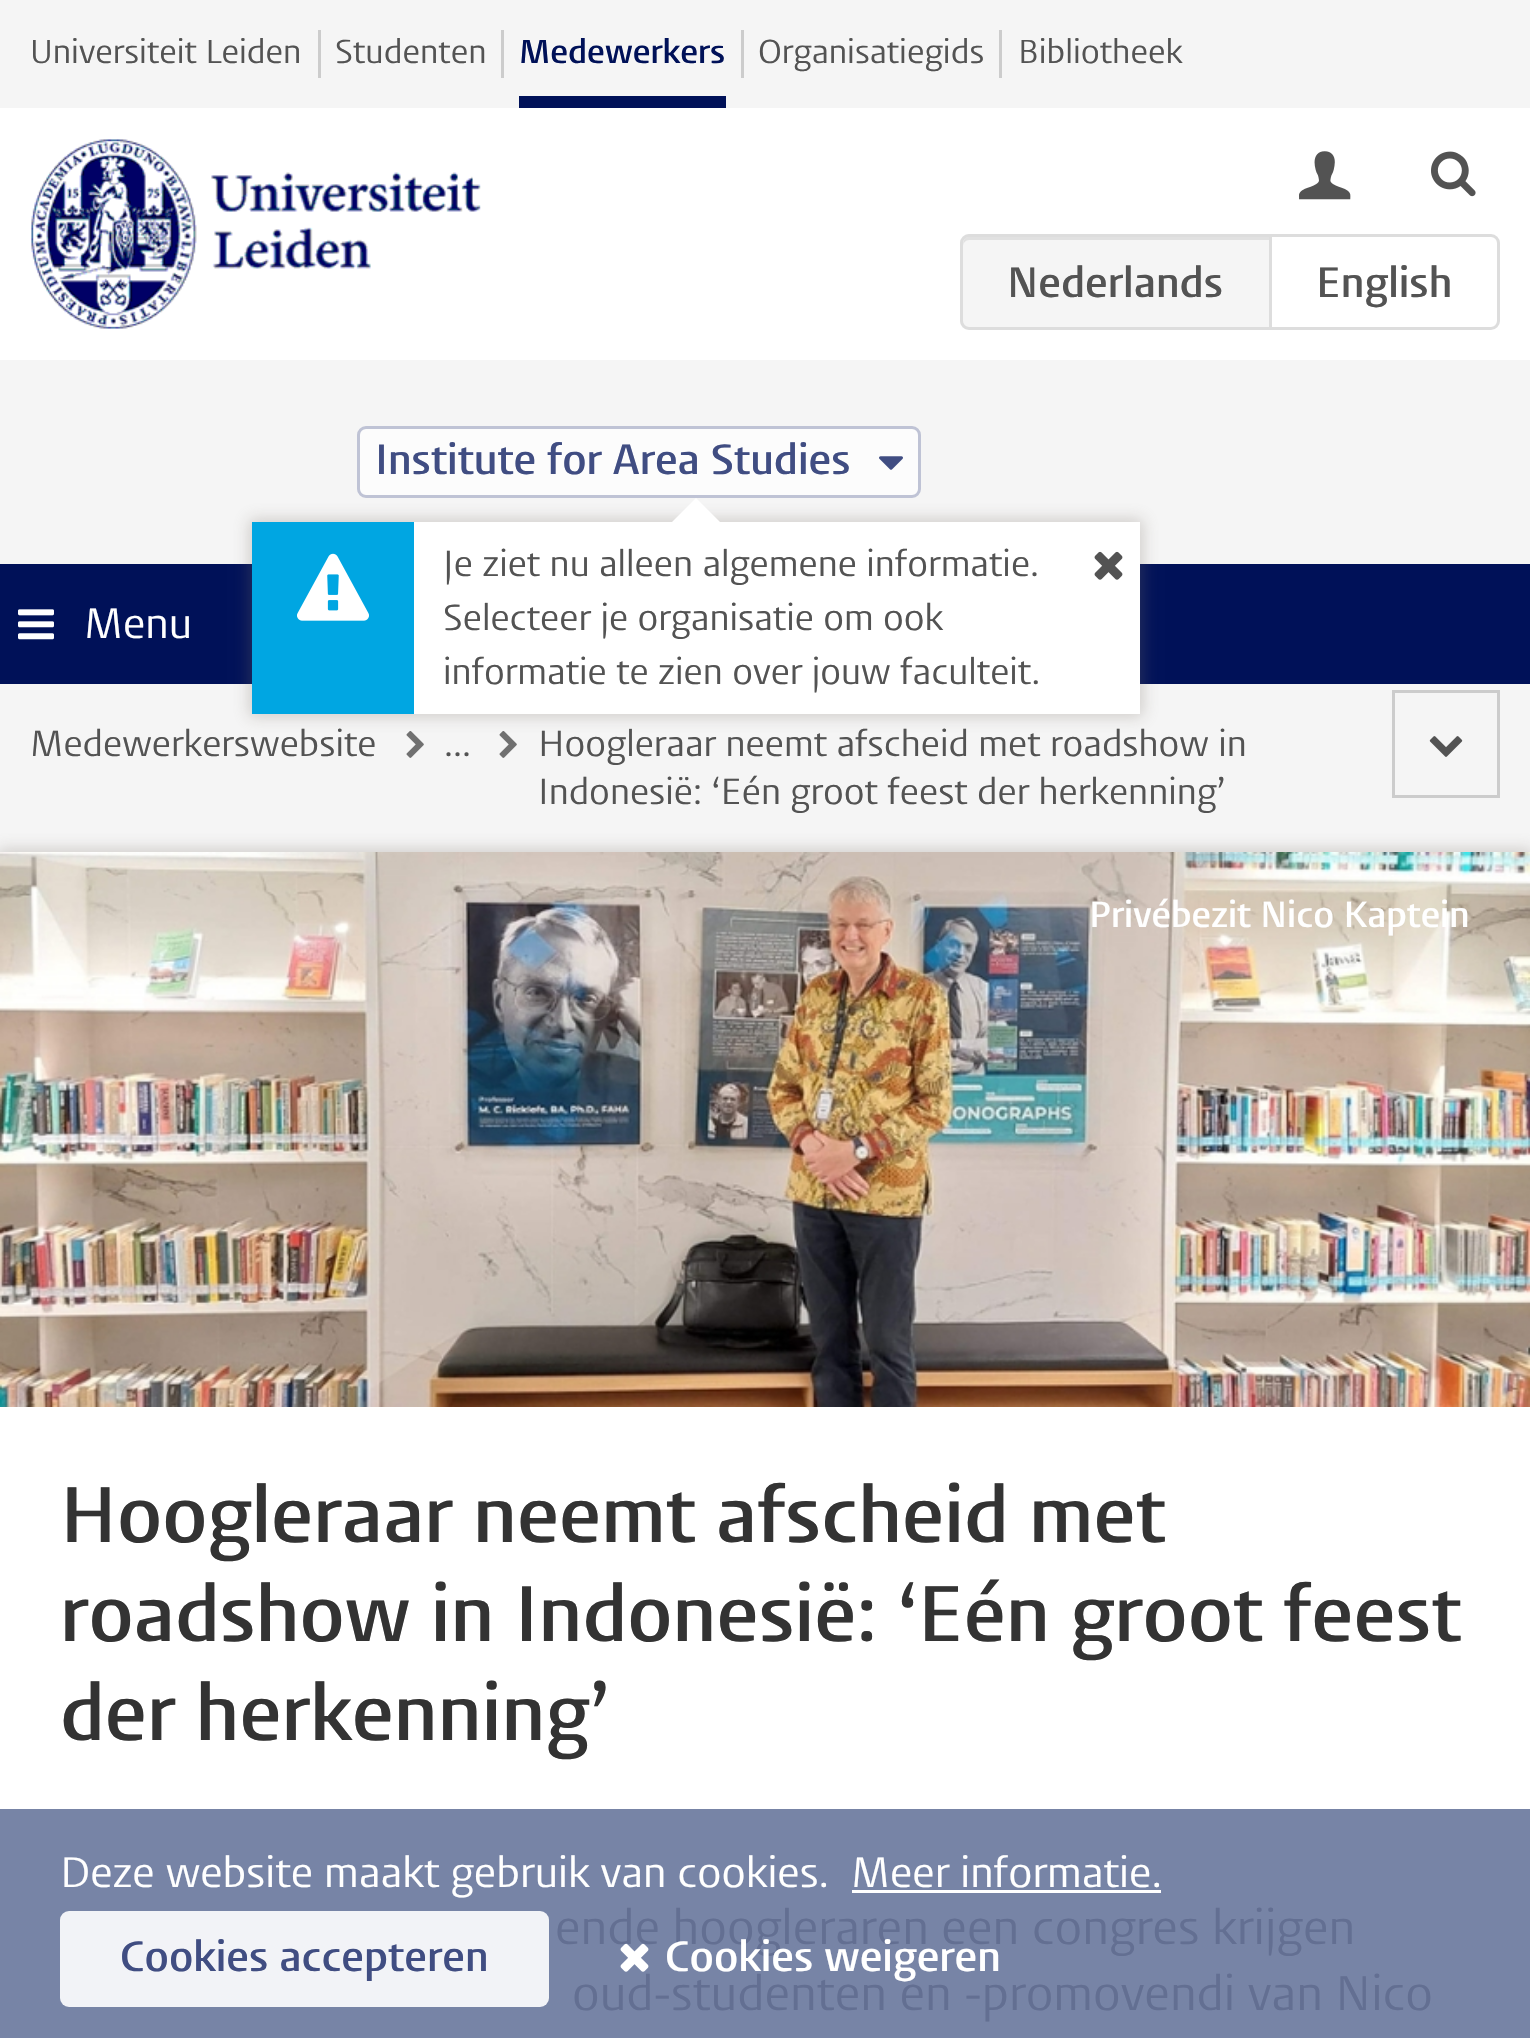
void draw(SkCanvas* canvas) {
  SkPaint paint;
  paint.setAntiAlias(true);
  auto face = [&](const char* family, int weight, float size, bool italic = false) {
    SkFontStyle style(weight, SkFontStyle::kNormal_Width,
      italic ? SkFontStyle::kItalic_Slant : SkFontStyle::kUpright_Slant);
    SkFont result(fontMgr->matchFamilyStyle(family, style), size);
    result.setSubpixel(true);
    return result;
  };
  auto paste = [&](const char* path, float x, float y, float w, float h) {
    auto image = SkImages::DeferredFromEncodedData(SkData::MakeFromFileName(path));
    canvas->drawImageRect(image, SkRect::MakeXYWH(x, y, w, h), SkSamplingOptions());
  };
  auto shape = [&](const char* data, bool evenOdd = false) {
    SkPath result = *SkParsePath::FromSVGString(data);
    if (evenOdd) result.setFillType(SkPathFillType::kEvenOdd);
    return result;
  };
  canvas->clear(0xfff5f5f5);
  {
    const struct { float x, y, w, h; SkColor color; } items[] = {
      {0, 108, 1530, 252, 0xffffffff},
      {318, 30, 3, 48, 0xffcccccc},
      {501, 30, 3, 48, 0xffcccccc},
      {741, 30, 3, 48, 0xffcccccc},
      {519, 96, 207, 12, 0xff001158},
      {999, 30, 3, 48, 0xffcccccc},
    };
    for (auto [x, y, w, h, color] : items) {
      paint.setColor(color);
      canvas->drawRect(SkRect::MakeXYWH(x, y, w, h), paint);
    }
  }
  paste("img/1.png", 31, 139, 450, 190);
  paste("img/2.png", 1299, 151, 52, 49);
  paste("img/3.png", 1431, 151, 45, 46);
  paint.setColor(0xfff5f5f5);
  canvas->drawPath(shape("M969 234H1272V330H969C964 330 960 326 960 321V243C960 238 964 234 969 234Z"), paint);
  paint.setColor(0xffe1e1e1);
  canvas->drawPath(shape("M969 240H1269V237H969C964 237 963 242 963 246C963 243 966 240 969 240Z"), paint);
  paint.setStroke(true);
  paint.setStrokeWidth(3);
  paint.setColor(0xffdddddd);
  canvas->drawPath(shape("M969 235.5H1270.5V328.5H969C965 328.5 961.5 325 961.5 321V243C961.5 239 965 235.5 969 235.5Z"), paint);
  paint.setStroke(false);
  paint.setColor(0xffffffff);
  canvas->drawPath(shape("M1270.5 235.5H1491C1495 235.5 1498.5 239 1498.5 243V321C1498.5 325 1495 328.5 1491 328.5H1270.5Z"), paint);
  paint.setStroke(true);
  paint.setColor(0xffdddddd);
  canvas->drawPath(shape("M1270.5 235.5H1491C1495 235.5 1498.5 239 1498.5 243V321C1498.5 325 1495 328.5 1491 328.5H1270.5Z"), paint);
  paint.setStroke(false);
  paint.setColor(0xff001158);
  canvas->drawRect(SkRect::MakeXYWH(0, 564, 1530, 120), paint);
  paste("img/4.png", 18, 609, 36, 31);
  paint.setColor(0xfffcfcfc);
  canvas->drawRoundRect(SkRect::MakeXYWH(358.5f, 427.5f, 561, 69), 7.5f, 7.5f, paint);
  paint.setStroke(true);
  paint.setColor(0xffbfc3d5);
  canvas->drawRoundRect(SkRect::MakeXYWH(358.5f, 427.5f, 561, 69), 7.5f, 7.5f, paint);
  paste("img/5.png", 879, 456, 24, 14);
  paste("img/8.png", 406, 731, 18, 27);
  paste("img/8.png", 499, 731, 18, 27);
  paint.setStroke(false);
  paint.setColor(0x4d786e64);
  paint.setMaskFilter(SkMaskFilter::MakeBlur(kNormal_SkBlurStyle, 7.5f));
  canvas->drawRect(SkRect::MakeXYWH(249, 519, 894, 198), paint);
  paint.setMaskFilter(nullptr);
  paint.setColor(0xffffffff);
  canvas->drawRect(SkRect::MakeXYWH(414, 522, 726, 192), paint);
  canvas->drawPath(shape("M720 522H672L696 498Z"), paint);
  paint.setColor(0xff00a6e2);
  canvas->drawRect(SkRect::MakeXYWH(252, 522, 162, 192), paint);
  paste("img/6.png", 297, 553, 72, 68);
  paste("img/7.png", 1094, 551, 29, 29);
  paint.setStroke(true);
  paint.setColor(0xffcccccc);
  canvas->drawRect(SkRect::MakeXYWH(1393.5f, 691.5f, 105, 105), paint);
  paste("img/9.png", 1429, 736, 34, 21);
  paint.setStroke(false);
  paint.setColor(0x4d786e64);
  paint.setMaskFilter(SkMaskFilter::MakeBlur(kNormal_SkBlurStyle, 7.5f));
  canvas->drawRect(SkRect::MakeXYWH(-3, 849, 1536, 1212), paint);
  paint.setMaskFilter(nullptr);
  paint.setColor(0xffffffff);
  canvas->drawRect(SkRect::MakeXYWH(0, 1407, 1530, 402), paint);
  paint.setColor(0xff7784a6);
  canvas->drawRect(SkRect::MakeXYWH(0, 1809, 1530, 229), paint);
  paste("img/10.png", 0, 852, 1530, 555);
  paint.setColor(0xffffffff);
  canvas->drawRect(SkRect::MakeXYWH(852, 1890, 309, 3), paint);
  paint.setColor(0xe6ffffff);
  canvas->drawRoundRect(SkRect::MakeXYWH(60, 1911, 489, 96), 9, 9, paint);
  auto f0 = face("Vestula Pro", 400, 33);
  paint.setColor(0xff535353);
  canvas->drawString("Universiteit Leiden", 30, 63, f0, paint);
  canvas->drawString("Studenten", 335, 63, f0, paint);
  auto f1 = face("Vestula Pro", 600, 33);
  paint.setColor(0xff001158);
  canvas->drawString("Medewerkers", 519, 63, f1, paint);
  paint.setColor(0xff535353);
  canvas->drawString("Organisatiegids", 758, 63, f0, paint);
  canvas->drawString("Bibliotheek", 1018, 63, f0, paint);
  auto f2 = face("Vestula Pro", 600, 42);
  canvas->drawString("Nederlands", 1007, 297, f2, paint);
  canvas->drawString("English", 1316, 297, f2, paint);
  auto f3 = face("Vestula Pro", 400, 42);
  paint.setColor(0xffffffff);
  canvas->drawString("Menu", 84, 638, f3, paint);
  paint.setColor(0xff404d82);
  canvas->drawString("Institute for Area Studies", 375, 474, f2, paint);
  auto f4 = face("Vestula Pro", 400, 36);
  paint.setColor(0xff535353);
  {
    const struct { const char* s; float x, y; } items[] = {
      {"Je ziet nu alleen algemene informatie.", 443, 576},
      {"Selecteer je organisatie om ook", 443, 630},
      {"informatie te zien over jouw faculteit.", 443, 684},
      {"Medewerkerswebsite", 30, 756},
      {"...", 444, 756},
      {"Hoogleraar neemt afscheid met roadshow in", 538, 756},
      {"Indonesië: ‘Eén groot feest der herkenning’", 538, 804},
    };
    for (auto [s, x, y] : items) {
      canvas->drawString(s, x, y, f4, paint);
    }
  }
  auto f5 = face("Vestula Pro", 600, 36);
  paint.setColor(0xffffffff);
  canvas->drawString("Privébezit Nico Kaptein", 1089, 927, f5, paint);
  auto f6 = face("Vestula Pro", 600, 78);
  paint.setColor(0xff333333);
  {
    const struct { const char* s; float x, y; } items[] = {
      {"Hoogleraar neemt afscheid met", 60, 1542},
      {"roadshow in Indonesië: ‘Eén groot feest", 60, 1641},
      {"der herkenning’", 60, 1740},
    };
    for (auto [s, x, y] : items) {
      canvas->drawString(s, x, y, f6, paint);
    }
  }
  auto f7 = face("Vestula Pro", 400, 48);
  paint.setColor(0xff636f92);
  canvas->drawString("ende hoogleraren een congres krijgen", 555, 1944, f7, paint);
  canvas->drawString("oud-studenten en -promovendi van Nico", 572, 2010, f7, paint);
  paint.setColor(0xffffffff);
  canvas->drawString("Deze website maakt gebruik van cookies.", 60, 1887, f3, paint);
  canvas->drawString("Meer informatie.", 851, 1887, f3, paint);
  paint.setColor(0xff404d82);
  canvas->drawString("Cookies accepteren", 120, 1971, f2, paint);
  paste("img/11.png", 620, 1943, 29, 29);
  paint.setColor(0xffffffff);
  canvas->drawString("Cookies weigeren", 665, 1971, f2, paint);
}
